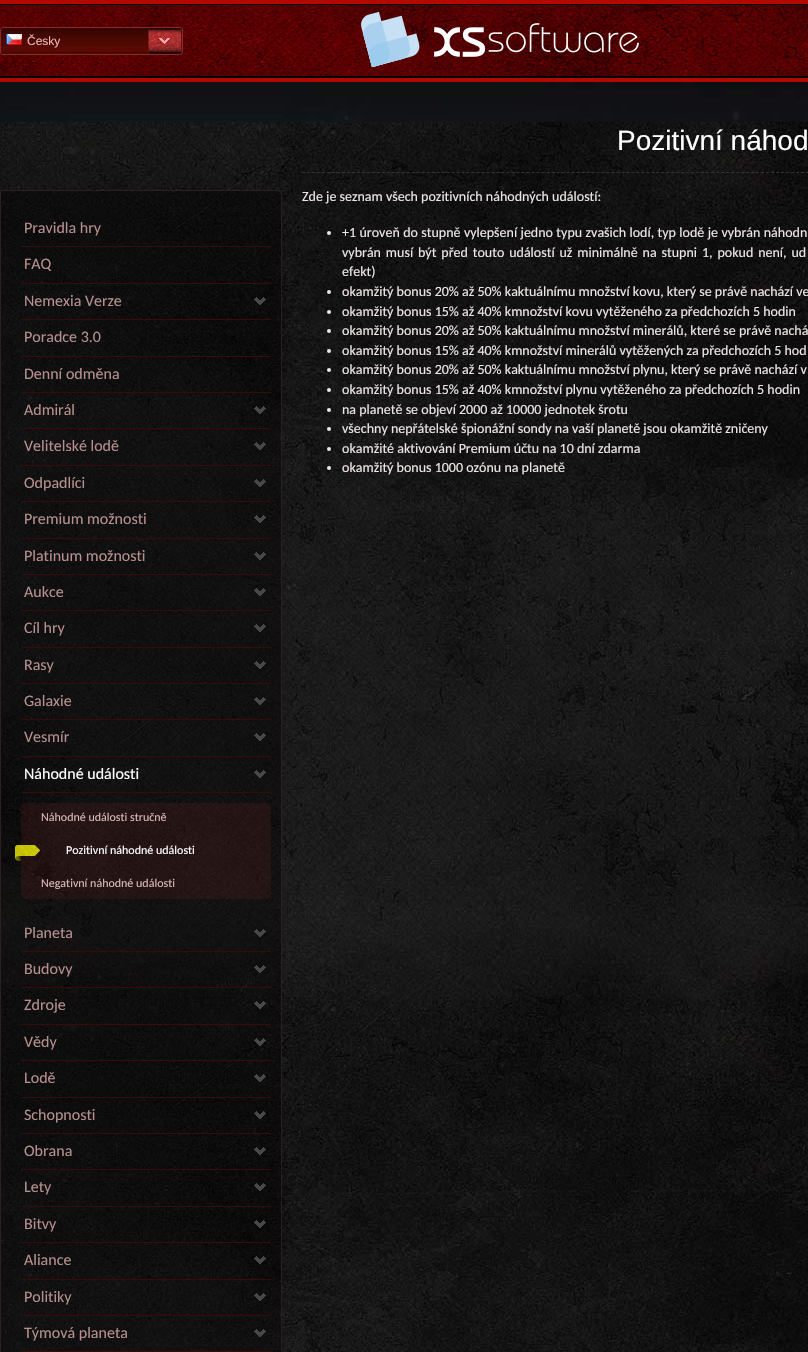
void draw(SkCanvas* canvas) {
  SkPaint paint;
  paint.setAntiAlias(true);
  auto face = [&](const char* family, int weight, float size, bool italic = false) {
    SkFontStyle style(weight, SkFontStyle::kNormal_Width,
      italic ? SkFontStyle::kItalic_Slant : SkFontStyle::kUpright_Slant);
    SkFont result(fontMgr->matchFamilyStyle(family, style), size);
    result.setSubpixel(true);
    return result;
  };
  auto writeSpaced = [&](const char* s, float x, float y, const SkFont& font, const SkPaint& ink, float letter, float word) {
    std::vector<SkGlyphID> glyphs(font.countText(s, strlen(s), SkTextEncoding::kUTF8));
    std::vector<float> xs(glyphs.size());
    font.textToGlyphs(s, strlen(s), SkTextEncoding::kUTF8, glyphs);
    font.getXPos(glyphs, xs, x);
    float extra = 0;
    for (size_t i = 0; i < glyphs.size(); i++) {
      xs[i] += extra;
      extra += letter + word * (glyphs[i] == font.unicharToGlyph(' '));
    }
    canvas->drawTextBlob(SkTextBlob::MakeFromPosHGlyphs(glyphs, xs, y, font), 0, 0, ink);
  };
  auto paste = [&](const char* path, float x, float y, float w, float h) {
    auto image = SkImages::DeferredFromEncodedData(SkData::MakeFromFileName(path));
    canvas->drawImageRect(image, SkRect::MakeXYWH(x, y, w, h), SkSamplingOptions());
  };
  auto shape = [&](const char* data, bool evenOdd = false) {
    SkPath result = *SkParsePath::FromSVGString(data);
    if (evenOdd) result.setFillType(SkPathFillType::kEvenOdd);
    return result;
  };
  canvas->clear(0xffffffff);
  paste("img/1.png", 0, 82, 808, 48);
  paste("img/2.png", 0, 0, 808, 82);
  paste("img/3.png", 0, 28, 182, 27);
  paint.setStroke(true);
  paint.setStrokeWidth(1);
  paint.setColor(0xff872b2d);
  canvas->drawRoundRect(SkRect::MakeXYWH(0.5f, 27.5f, 182, 27), 2.5f, 2.5f, paint);
  paste("img/4.png", 6, 34, 16, 11);
  paste("img/5.png", 361, 11, 278, 57);
  paste("img/6.png", 0, 122, 808, 1230);
  paint.setStroke(false);
  paint.setColor(0x66000000);
  canvas->drawPath(shape("M.5 190.5H277C279.5 190.5 281.5 192.5 281.5 195V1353C281.5 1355.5 279.5 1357.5 277 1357.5H.5Z"), paint);
  paint.setStroke(true);
  paint.setColor(0xff29211f);
  canvas->drawPath(shape("M.5 190.5H277C279.5 190.5 281.5 192.5 281.5 195V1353C281.5 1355.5 279.5 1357.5 277 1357.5H.5Z"), paint);
  paint.setStroke(false);
  {
    const struct { float x, y, w, h; SkColor color; } items[] = {
      {21, 246, 250, 1, 0xff360d07},
      {21, 283, 250, 1, 0xff360d07},
      {21, 319, 250, 1, 0xff360d07},
    };
    for (auto [x, y, w, h, color] : items) {
      paint.setColor(color);
      canvas->drawRect(SkRect::MakeXYWH(x, y, w, h), paint);
    }
  }
  paste("img/7.png", 254, 297, 12, 8);
  {
    const struct { float x, y, w, h; SkColor color; } items[] = {
      {21, 356, 250, 1, 0xff360d07},
      {21, 392, 250, 1, 0xff360d07},
      {21, 428, 250, 1, 0xff360d07},
    };
    for (auto [x, y, w, h, color] : items) {
      paint.setColor(color);
      canvas->drawRect(SkRect::MakeXYWH(x, y, w, h), paint);
    }
  }
  paste("img/8.png", 254, 406, 12, 8);
  canvas->drawRect(SkRect::MakeXYWH(21, 465, 250, 1), paint);
  paste("img/9.png", 254, 442, 12, 8);
  canvas->drawRect(SkRect::MakeXYWH(21, 501, 250, 1), paint);
  paste("img/10.png", 254, 479, 12, 8);
  canvas->drawRect(SkRect::MakeXYWH(21, 538, 250, 1), paint);
  paste("img/11.png", 254, 515, 12, 8);
  canvas->drawRect(SkRect::MakeXYWH(21, 574, 250, 1), paint);
  paste("img/12.png", 254, 552, 12, 8);
  canvas->drawRect(SkRect::MakeXYWH(21, 610, 250, 1), paint);
  paste("img/13.png", 254, 588, 12, 8);
  canvas->drawRect(SkRect::MakeXYWH(21, 647, 250, 1), paint);
  paste("img/14.png", 254, 624, 12, 8);
  canvas->drawRect(SkRect::MakeXYWH(21, 683, 250, 1), paint);
  paste("img/15.png", 254, 661, 12, 8);
  canvas->drawRect(SkRect::MakeXYWH(21, 719, 250, 1), paint);
  paste("img/16.png", 254, 697, 12, 8);
  canvas->drawRect(SkRect::MakeXYWH(21, 756, 250, 1), paint);
  paste("img/17.png", 254, 733, 12, 8);
  canvas->drawRect(SkRect::MakeXYWH(21, 792, 250, 1), paint);
  paste("img/18.png", 254, 770, 12, 8);
  paint.setColor(0x21a72525);
  canvas->drawRoundRect(SkRect::MakeXYWH(21, 803, 250, 96), 5, 5, paint);
  paste("img/19.png", 15, 845, 25, 16);
  paint.setColor(0xff360d07);
  canvas->drawRect(SkRect::MakeXYWH(21, 951, 250, 1), paint);
  paste("img/20.png", 254, 929, 12, 8);
  canvas->drawRect(SkRect::MakeXYWH(21, 987, 250, 1), paint);
  paste("img/21.png", 254, 965, 12, 8);
  canvas->drawRect(SkRect::MakeXYWH(21, 1024, 250, 1), paint);
  paste("img/22.png", 254, 1001, 12, 8);
  canvas->drawRect(SkRect::MakeXYWH(21, 1060, 250, 1), paint);
  paste("img/23.png", 254, 1038, 12, 8);
  canvas->drawRect(SkRect::MakeXYWH(21, 1097, 250, 1), paint);
  paste("img/24.png", 254, 1074, 12, 8);
  canvas->drawRect(SkRect::MakeXYWH(21, 1133, 250, 1), paint);
  paste("img/25.png", 254, 1111, 12, 8);
  canvas->drawRect(SkRect::MakeXYWH(21, 1169, 250, 1), paint);
  paste("img/26.png", 254, 1147, 12, 8);
  canvas->drawRect(SkRect::MakeXYWH(21, 1206, 250, 1), paint);
  paste("img/27.png", 254, 1183, 12, 8);
  canvas->drawRect(SkRect::MakeXYWH(21, 1242, 250, 1), paint);
  paste("img/28.png", 254, 1220, 12, 8);
  canvas->drawRect(SkRect::MakeXYWH(21, 1279, 250, 1), paint);
  paste("img/29.png", 254, 1256, 12, 8);
  canvas->drawRect(SkRect::MakeXYWH(21, 1315, 250, 1), paint);
  paste("img/30.png", 254, 1293, 12, 8);
  canvas->drawRect(SkRect::MakeXYWH(21, 1351, 250, 1), paint);
  paste("img/31.png", 254, 1329, 12, 8);
  paint.setStroke(true);
  paint.setColor(0xff333333);
  paint.setPathEffect(SkDashPathEffect::Make({{3, 1.99f}}, 0));
  canvas->drawPath(shape("M302 172.5H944"), paint);
  paint.setPathEffect(nullptr);
  paint.setStroke(false);
  paint.setColor(0xffeee6e6);
  canvas->drawCircle(329, 233, 2, paint);
  canvas->drawCircle(329, 292, 2, paint);
  canvas->drawCircle(329, 312, 2, paint);
  canvas->drawCircle(329, 331, 2, paint);
  canvas->drawCircle(329, 351, 2, paint);
  canvas->drawCircle(329, 370, 2, paint);
  canvas->drawCircle(329, 390, 2, paint);
  canvas->drawCircle(329, 410, 2, paint);
  canvas->drawCircle(329, 429, 2, paint);
  canvas->drawCircle(329, 449, 2, paint);
  canvas->drawCircle(329, 468, 2, paint);
  auto f0 = face("Liberation Sans", 400, 12);
  paint.setColor(0xffe9b7b7);
  canvas->drawString("Česky", 27, 45, f0, paint);
  auto f1 = face("Carlito", 400, 16);
  paint.setColor(0xffb78f8f);
  {
    const struct { const char* s; float x, y; } items[] = {
      {"Pravidla hry", 24, 233},
      {"FAQ", 24, 269},
      {"Nemexia Verze", 24, 306},
      {"Poradce 3.0", 24, 342},
      {"Denní odměna", 24, 379},
      {"Admirál", 24, 415},
      {"Velitelské lodě", 24, 451},
      {"Odpadlíci", 24, 488},
      {"Premium možnosti", 24, 524},
      {"Platinum možnosti", 24, 561},
      {"Aukce", 24, 597},
      {"Cíl hry", 24, 633},
      {"Rasy", 24, 670},
      {"Galaxie", 24, 706},
      {"Vesmír", 24, 742},
    };
    for (auto [s, x, y] : items) {
      canvas->drawString(s, x, y, f1, paint);
    }
  }
  paint.setColor(0xffffffff);
  canvas->drawString("Náhodné události", 24, 779, f1, paint);
  auto f2 = face("Carlito", 400, 12);
  paint.setColor(0xffdbbaba);
  canvas->drawString("Náhodné události stručně", 41, 821, f2, paint);
  paint.setColor(0xffffffff);
  canvas->drawString("Pozitivní náhodné události", 66, 854, f2, paint);
  paint.setColor(0xffdbbaba);
  canvas->drawString("Negativní náhodné události", 41, 887, f2, paint);
  paint.setColor(0xffb78f8f);
  {
    const struct { const char* s; float x, y; } items[] = {
      {"Planeta", 24, 938},
      {"Budovy", 24, 974},
      {"Zdroje", 24, 1010},
      {"Vědy", 24, 1047},
      {"Lodě", 24, 1083},
      {"Schopnosti", 24, 1120},
      {"Obrana", 24, 1156},
      {"Lety", 24, 1192},
      {"Bitvy", 24, 1229},
      {"Aliance", 24, 1265},
      {"Politiky", 24, 1302},
      {"Týmová planeta", 24, 1338},
    };
    for (auto [s, x, y] : items) {
      canvas->drawString(s, x, y, f1, paint);
    }
  }
  auto f3 = face("Liberation Sans", 400, 28);
  paint.setColor(0xffffffff);
  canvas->drawString("Pozitivní náhod", 617, 150, f3, paint);
  auto f4 = face("Carlito", 400, 14);
  paint.setColor(0xffeee6e6);
  canvas->drawString("Zde je seznam všech pozitivních náhodných událostí:", 302, 201, f4, paint);
  writeSpaced("+1 úroveň do stupně vylepšení jedno typu zvašich lodí, typ lodě je vybrán náhodn", 342, 237, f4, paint, 0, 0.25f);
  writeSpaced("vybrán musí být před touto událostí už minimálně na stupni 1, pokud není, ud", 342, 257, f4, paint, 0, 1.75f);
  {
    const struct { const char* s; float x, y; } items[] = {
      {"efekt)", 342, 276},
      {"okamžitý bonus 20% až 50% kaktuálnímu množství kovu, který se právě nachází ve", 342, 296},
      {"okamžitý bonus 15% až 40% kmnožství kovu vytěženého za předchozích 5 hodin", 342, 316},
      {"okamžitý bonus 20% až 50% kaktuálnímu množství minerálů, které se právě nachá", 342, 335},
      {"okamžitý bonus 15% až 40% kmnožství minerálů vytěžených za předchozích 5 hod", 342, 355},
      {"okamžitý bonus 20% až 50% kaktuálnímu množství plynu, který se právě nachází v", 342, 374},
      {"okamžitý bonus 15% až 40% kmnožství plynu vytěženého za předchozích 5 hodin", 342, 394},
      {"na planetě se objeví 2000 až 10000 jednotek šrotu", 342, 414},
      {"všechny nepřátelské špionážní sondy na vaší planetě jsou okamžitě zničeny", 342, 433},
      {"okamžité aktivování Premium účtu na 10 dní zdarma", 342, 453},
      {"okamžitý bonus 1000 ozónu na planetě", 342, 472},
    };
    for (auto [s, x, y] : items) {
      canvas->drawString(s, x, y, f4, paint);
    }
  }
}
